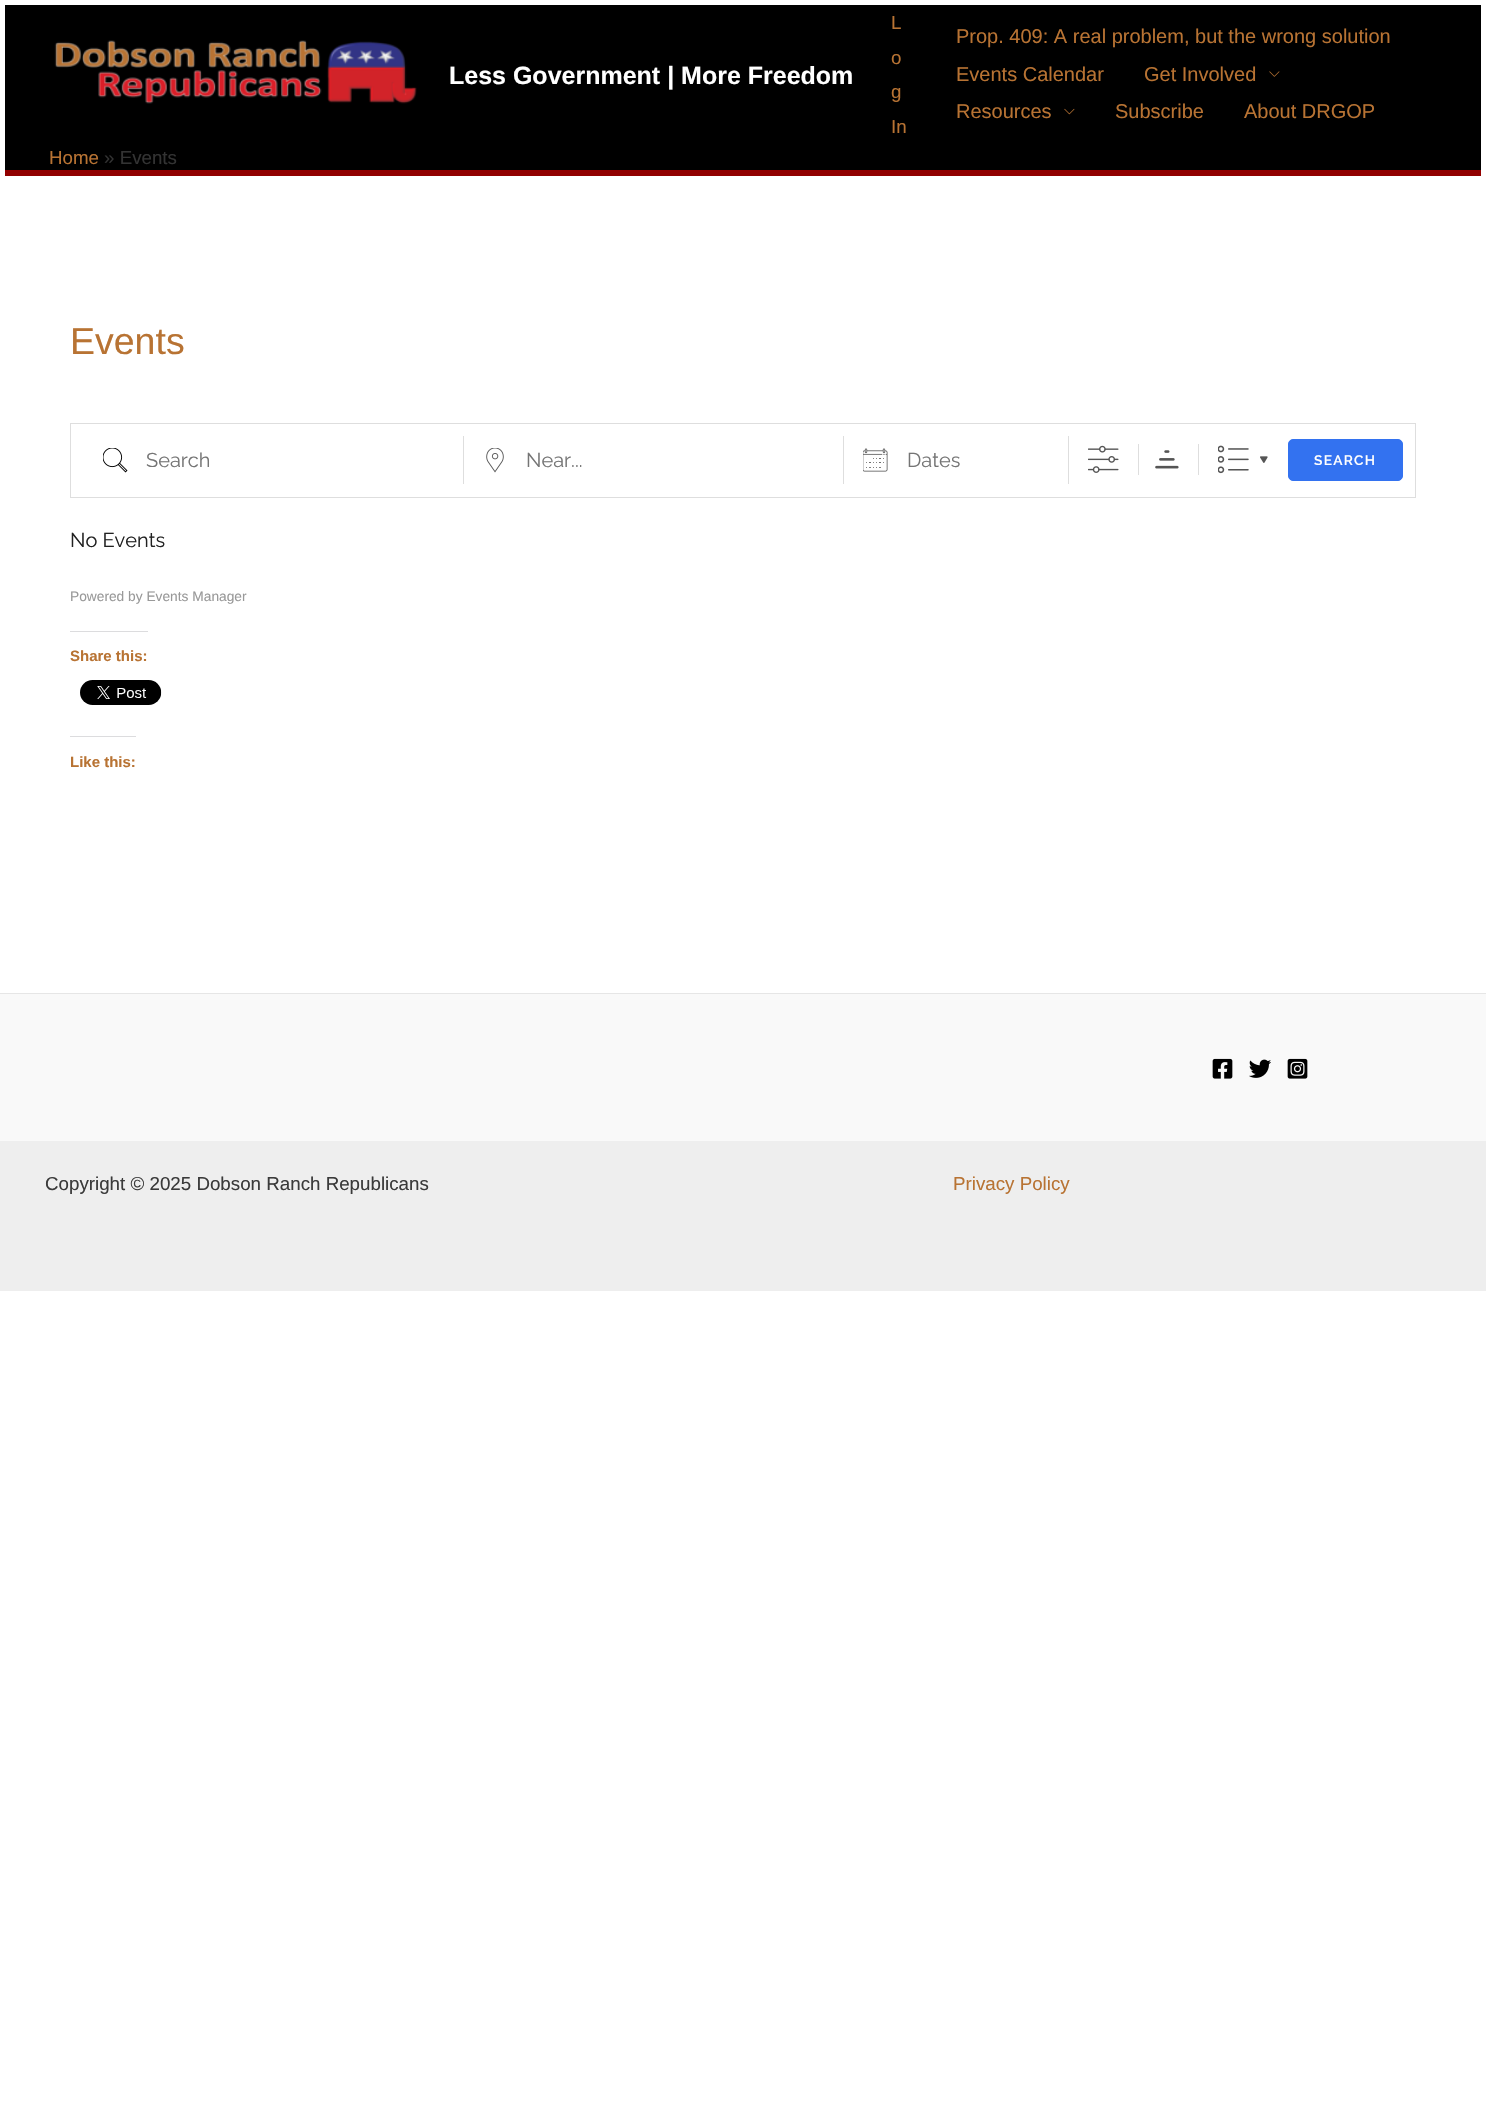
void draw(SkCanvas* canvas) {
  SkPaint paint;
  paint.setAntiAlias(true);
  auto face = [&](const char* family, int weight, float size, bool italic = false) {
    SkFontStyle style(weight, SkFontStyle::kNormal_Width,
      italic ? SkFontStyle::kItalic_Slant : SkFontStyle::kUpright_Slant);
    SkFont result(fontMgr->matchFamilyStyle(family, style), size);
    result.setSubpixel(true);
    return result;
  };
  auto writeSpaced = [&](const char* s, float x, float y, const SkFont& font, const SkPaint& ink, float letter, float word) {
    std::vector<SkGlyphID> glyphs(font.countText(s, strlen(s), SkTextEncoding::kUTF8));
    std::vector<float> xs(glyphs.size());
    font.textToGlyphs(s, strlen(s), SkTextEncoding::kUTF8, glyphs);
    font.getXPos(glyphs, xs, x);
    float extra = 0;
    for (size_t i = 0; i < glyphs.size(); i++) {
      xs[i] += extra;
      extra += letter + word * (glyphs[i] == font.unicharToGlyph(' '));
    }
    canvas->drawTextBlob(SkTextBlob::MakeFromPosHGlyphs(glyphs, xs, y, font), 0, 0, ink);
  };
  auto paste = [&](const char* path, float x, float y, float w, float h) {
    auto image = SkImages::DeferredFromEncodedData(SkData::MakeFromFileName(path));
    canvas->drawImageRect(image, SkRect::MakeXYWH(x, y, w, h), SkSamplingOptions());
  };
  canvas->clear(0xffffffff);
  paint.setColor(0xff000000);
  canvas->drawRect(SkRect::MakeXYWH(5, 5, 1476, 165), paint);
  paint.setColor(0xff910000);
  canvas->drawRect(SkRect::MakeXYWH(5, 170, 1476, 6), paint);
  paste("img/1.png", 54, 40, 363, 64);
  paste("img/2.png", 1269, 71, 11, 6);
  paste("img/3.png", 1064, 108, 11, 7);
  paint.setStroke(true);
  paint.setStrokeWidth(1);
  paint.setColor(0xffdedede);
  canvas->drawRect(SkRect::MakeXYWH(70.5f, 423.5f, 1345, 74), paint);
  paint.setStroke(false);
  canvas->drawRect(SkRect::MakeXYWH(463, 436, 1, 48), paint);
  paste("img/4.png", 103, 448, 25, 25);
  canvas->drawRect(SkRect::MakeXYWH(843, 436, 1, 48), paint);
  paste("img/5.png", 486, 448, 18, 25);
  canvas->drawRect(SkRect::MakeXYWH(1068, 436, 1, 48), paint);
  paste("img/6.png", 863, 448, 25, 24);
  paste("img/7.png", 1088, 445, 31, 28);
  canvas->drawRect(SkRect::MakeXYWH(1138, 444, 1, 31), paint);
  paste("img/8.png", 1155, 450, 24, 19);
  canvas->drawRect(SkRect::MakeXYWH(1198, 444, 1, 31), paint);
  paste("img/9.png", 1260, 456, 8, 7);
  paste("img/10.png", 1218, 445, 31, 29);
  paint.setColor(0xff3372f0);
  canvas->drawRoundRect(SkRect::MakeXYWH(1288.5f, 439.5f, 114, 41), 4.5f, 4.5f, paint);
  paint.setStroke(true);
  canvas->drawRoundRect(SkRect::MakeXYWH(1288.5f, 439.5f, 114, 41), 4.5f, 4.5f, paint);
  paint.setStroke(false);
  paint.setColor(0xffdcdcde);
  canvas->drawRect(SkRect::MakeXYWH(70, 631, 78, 1), paint);
  paste("img/11.png", 80, 680, 82, 25);
  {
    const struct { float x, y, w, h; SkColor color; } items[] = {
      {70, 736, 66, 1, 0xffdcdcde},
      {0, 994, 1486, 147, 0xfff9f9f9},
      {0, 993, 1486, 1, 0xffe6e6e6},
    };
    for (auto [x, y, w, h, color] : items) {
      paint.setColor(color);
      canvas->drawRect(SkRect::MakeXYWH(x, y, w, h), paint);
    }
  }
  paste("img/12.png", 1212, 1058, 21, 21);
  paste("img/13.png", 1249, 1059, 22, 19);
  paste("img/14.png", 1287, 1058, 21, 21);
  paint.setColor(0xffeeeeee);
  canvas->drawRect(SkRect::MakeXYWH(0, 1141, 1486, 150), paint);
  auto f0 = face("Liberation Sans", 700, 25);
  paint.setColor(0xffffffff);
  canvas->drawString("Less Government | More Freedom", 449, 84, f0, paint);
  auto f1 = face("Liberation Sans", 400, 18.75f);
  paint.setColor(0xffb87333);
  {
    const struct { const char* s; float x, y; } items[] = {
      {"L", 891, 29},
      {"o", 891, 64},
      {"g", 891, 98},
      {"In", 891, 133},
    };
    for (auto [s, x, y] : items) {
      canvas->drawString(s, x, y, f1, paint);
    }
  }
  auto f2 = face("Liberation Sans", 400, 20);
  {
    const struct { const char* s; float x, y; } items[] = {
      {"Prop. 409: A real problem, but the wrong solution", 956, 43},
      {"Events Calendar", 956, 81},
      {"Get Involved", 1144, 81},
      {"Resources", 956, 118},
      {"Subscribe", 1115, 118},
      {"About DRGOP", 1244, 118},
    };
    for (auto [s, x, y] : items) {
      canvas->drawString(s, x, y, f2, paint);
    }
  }
  canvas->drawString("Home", 49, 164, f1, paint);
  paint.setColor(0xff333333);
  canvas->drawString("» Events", 104, 164, f1, paint);
  auto f3 = face("Liberation Sans", 400, 37.5f);
  paint.setColor(0xffb87333);
  canvas->drawString("Events", 70, 354, f3, paint);
  auto f4 = face("Raleway", 400, 20);
  paint.setColor(0xff757575);
  {
    const struct { const char* s; float x, y; } items[] = {
      {"Search", 146, 467},
      {"Near...", 526, 467},
      {"Dates", 907, 467},
    };
    for (auto [s, x, y] : items) {
      canvas->drawString(s, x, y, f4, paint);
    }
  }
  auto f5 = face("Raleway", 600, 13.75f);
  paint.setColor(0xffffffff);
  writeSpaced("SEARCH", 1314, 465, f5, paint, 1.25f, 0);
  paint.setColor(0xff212121);
  canvas->drawString("No Events", 70, 547, f4, paint);
  auto f6 = face("Liberation Sans", 400, 13.75f);
  paint.setColor(0xff999999);
  canvas->drawString("Powered by Events Manager", 70, 601, f6, paint);
  auto f7 = face("Liberation Sans", 700, 15);
  paint.setColor(0xffb87333);
  canvas->drawString("Share this:", 70, 661, f7, paint);
  canvas->drawString("Like this:", 70, 767, f7, paint);
  paint.setColor(0xff3a3a3a);
  canvas->drawString("Copyright © 2025 Dobson Ranch Republicans", 45, 1190, f1, paint);
  paint.setColor(0xffb87333);
  canvas->drawString("Privacy Policy", 953, 1190, f1, paint);
}
